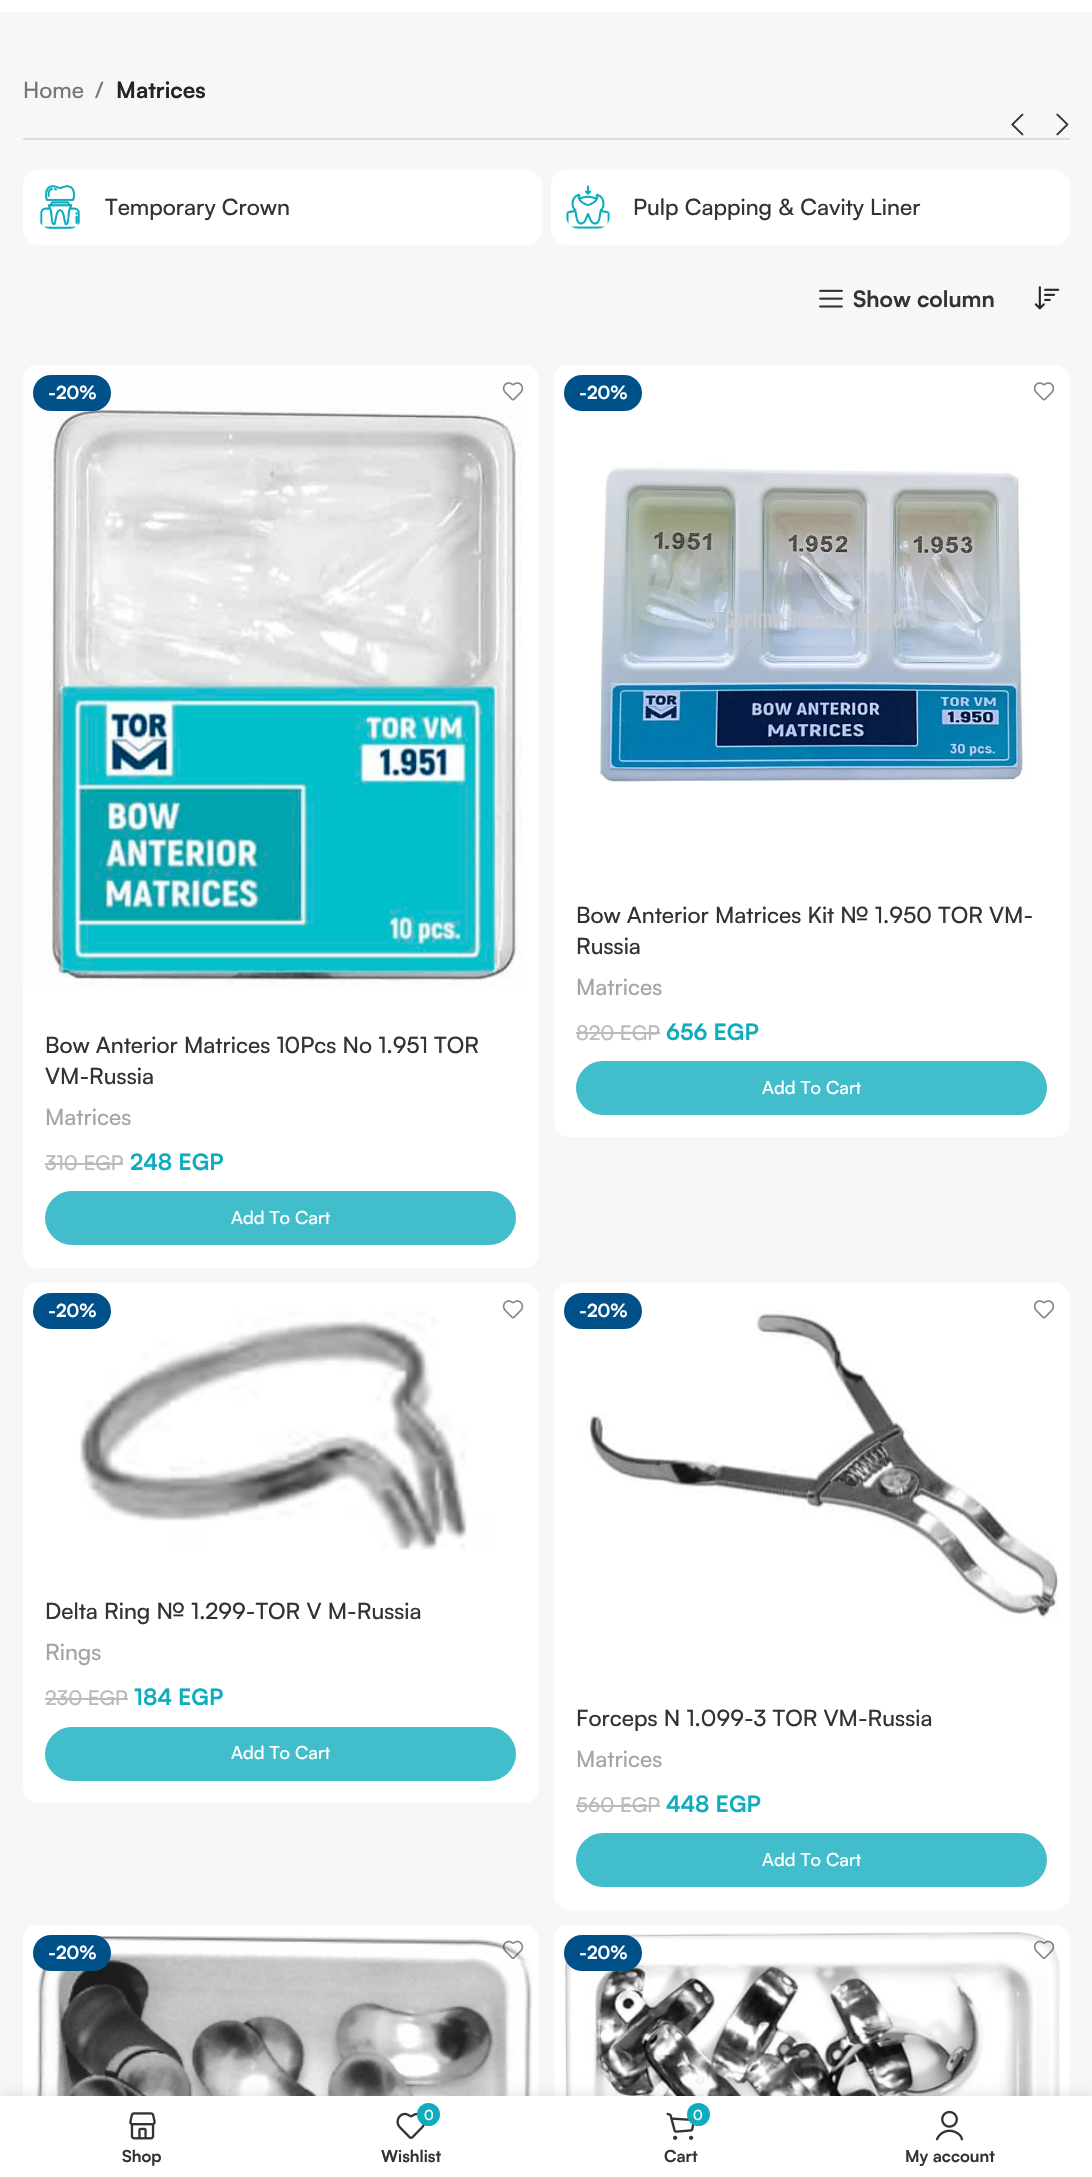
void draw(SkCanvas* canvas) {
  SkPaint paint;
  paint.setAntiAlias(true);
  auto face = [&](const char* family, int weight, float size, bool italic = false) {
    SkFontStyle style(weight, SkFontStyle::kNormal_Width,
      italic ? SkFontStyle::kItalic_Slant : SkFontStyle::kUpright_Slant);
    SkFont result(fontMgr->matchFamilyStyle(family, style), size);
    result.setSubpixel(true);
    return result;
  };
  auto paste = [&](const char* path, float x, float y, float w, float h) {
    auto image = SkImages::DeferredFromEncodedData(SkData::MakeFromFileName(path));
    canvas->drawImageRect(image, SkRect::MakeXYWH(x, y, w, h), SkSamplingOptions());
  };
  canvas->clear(0xffffffff);
  paint.setColor(0xfff5f7f8);
  canvas->drawRect(SkRect::MakeXYWH(0, 12, 1092, 2084), paint);
  paint.setColor(0xffdadcdd);
  canvas->drawRect(SkRect::MakeXYWH(23, 138, 1047, 2), paint);
  paste("img/1.png", 1011, 113, 13, 23);
  paste("img/2.png", 1056, 113, 13, 23);
  paint.setColor(0xffffffff);
  canvas->drawRoundRect(SkRect::MakeXYWH(23, 170, 519, 75), 15, 15, paint);
  paste("img/3.png", 40, 185, 40, 44);
  canvas->drawRoundRect(SkRect::MakeXYWH(551, 170, 519, 75), 15, 15, paint);
  paste("img/4.png", 566, 185, 44, 44);
  paste("img/5.png", 819, 289, 24, 19);
  paste("img/6.png", 1034, 286, 26, 24);
  canvas->drawRoundRect(SkRect::MakeXYWH(23, 365, 516, 903), 15, 15, paint);
  paste("img/7.png", 23, 365, 506, 622);
  paint.setColor(0xff005089);
  canvas->drawRoundRect(SkRect::MakeXYWH(33, 375, 78, 36), 18, 18, paint);
  paste("img/8.png", 502, 382, 22, 19);
  paint.setColor(0xffbbbbbb);
  canvas->drawRect(SkRect::MakeXYWH(45, 1163, 78, 2), paint);
  paint.setColor(0xff41bdcb);
  canvas->drawRoundRect(SkRect::MakeXYWH(45, 1191, 471, 54), 27, 27, paint);
  paint.setColor(0xffffffff);
  canvas->drawRoundRect(SkRect::MakeXYWH(554, 365, 516, 772), 15, 15, paint);
  paste("img/9.png", 554, 365, 508, 418);
  paint.setColor(0xff005089);
  canvas->drawRoundRect(SkRect::MakeXYWH(564, 375, 78, 36), 18, 18, paint);
  paste("img/10.png", 1033, 382, 22, 19);
  paint.setColor(0xffbbbbbb);
  canvas->drawRect(SkRect::MakeXYWH(576, 1032, 84, 2), paint);
  paint.setColor(0xff41bdcb);
  canvas->drawRoundRect(SkRect::MakeXYWH(576, 1061, 471, 54), 27, 27, paint);
  paint.setColor(0xffffffff);
  canvas->drawRoundRect(SkRect::MakeXYWH(23, 1283, 516, 520), 15, 15, paint);
  paste("img/11.png", 23, 1283, 508, 267);
  paint.setColor(0xff005089);
  canvas->drawRoundRect(SkRect::MakeXYWH(33, 1293, 78, 36), 18, 18, paint);
  paste("img/10.png", 502, 1300, 22, 19);
  paint.setColor(0xffbbbbbb);
  canvas->drawRect(SkRect::MakeXYWH(45, 1698, 83, 2), paint);
  paint.setColor(0xff41bdcb);
  canvas->drawRoundRect(SkRect::MakeXYWH(45, 1727, 471, 54), 27, 27, paint);
  paint.setColor(0xffffffff);
  canvas->drawRoundRect(SkRect::MakeXYWH(554, 1283, 516, 627), 15, 15, paint);
  paste("img/12.png", 554, 1283, 508, 337);
  paint.setColor(0xff005089);
  canvas->drawRoundRect(SkRect::MakeXYWH(564, 1293, 78, 36), 18, 18, paint);
  paste("img/10.png", 1033, 1300, 22, 19);
  paint.setColor(0xffbbbbbb);
  canvas->drawRect(SkRect::MakeXYWH(576, 1805, 84, 2), paint);
  paint.setColor(0xff41bdcb);
  canvas->drawRoundRect(SkRect::MakeXYWH(576, 1833, 471, 54), 27, 27, paint);
  paint.setColor(0xffffffff);
  canvas->drawRoundRect(SkRect::MakeXYWH(23, 1925, 516, 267), 15, 15, paint);
  paste("img/13.png", 23, 1925, 509, 171);
  paint.setColor(0xff005089);
  canvas->drawRoundRect(SkRect::MakeXYWH(33, 1935, 78, 36), 18, 18, paint);
  paste("img/14.png", 502, 1940, 22, 19);
  paint.setColor(0xffffffff);
  canvas->drawRoundRect(SkRect::MakeXYWH(554, 1925, 516, 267), 15, 15, paint);
  paste("img/15.png", 554, 1925, 508, 171);
  paint.setColor(0xff005089);
  canvas->drawRoundRect(SkRect::MakeXYWH(564, 1935, 78, 36), 18, 18, paint);
  paste("img/16.png", 1033, 1940, 22, 19);
  paint.setColor(0x1f000000);
  paint.setMaskFilter(SkMaskFilter::MakeBlur(kNormal_SkBlurStyle, 7));
  canvas->drawRect(SkRect::MakeXYWH(0, 2096, 1092, 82), paint);
  paint.setMaskFilter(nullptr);
  paint.setColor(0xffffffff);
  canvas->drawRect(SkRect::MakeXYWH(0, 2096, 1092, 81), paint);
  paste("img/17.png", 129, 2112, 27, 28);
  paste("img/18.png", 396, 2112, 29, 27);
  paint.setColor(0xff0eacbd);
  canvas->drawCircle(428.5f, 2114.5f, 11.5f, paint);
  paste("img/19.png", 666, 2112, 29, 28);
  canvas->drawCircle(698.5f, 2114.5f, 11.5f, paint);
  paste("img/20.png", 935, 2110, 29, 31);
  auto f0 = face("Satoshi", 500, 22.5f);
  paint.setColor(0xff767676);
  canvas->drawString("Home", 23, 98, f0, paint);
  canvas->drawString("/", 95, 98, f0, paint);
  auto f1 = face("Satoshi", 700, 22.5f);
  paint.setColor(0xff242424);
  canvas->drawString("Matrices", 116, 98, f1, paint);
  paint.setColor(0xff333333);
  canvas->drawString("Temporary Crown", 105, 215, f0, paint);
  canvas->drawString("Pulp Capping & Cavity Liner", 633, 215, f0, paint);
  canvas->drawString("Show column", 853, 307, f1, paint);
  auto f2 = face("Satoshi", 700, 18);
  paint.setColor(0xffffffff);
  canvas->drawString("-20%", 48, 399, f2, paint);
  paint.setColor(0xff333333);
  canvas->drawString("Bow Anterior Matrices 10Pcs No 1.951 TOR", 45, 1053, f0, paint);
  canvas->drawString("VM-Russia", 45, 1084, f0, paint);
  paint.setColor(0xffa5a5a5);
  canvas->drawString("Matrices", 45, 1125, f0, paint);
  auto f3 = face("Satoshi", 500, 20.25f);
  paint.setColor(0xffbbbbbb);
  canvas->drawString("310 EGP", 45, 1170, f3, paint);
  paint.setColor(0xff0eacbd);
  canvas->drawString("248 EGP", 130, 1170, f1, paint);
  auto f4 = face("Satoshi", 500, 18);
  paint.setColor(0xffffffff);
  canvas->drawString("Add To Cart", 231, 1224, f4, paint);
  canvas->drawString("-20%", 579, 399, f2, paint);
  paint.setColor(0xff333333);
  canvas->drawString("Bow Anterior Matrices Kit № 1.950 TOR VM-", 576, 923, f0, paint);
  canvas->drawString("Russia", 576, 954, f0, paint);
  paint.setColor(0xffa5a5a5);
  canvas->drawString("Matrices", 576, 995, f0, paint);
  paint.setColor(0xffbbbbbb);
  canvas->drawString("820 EGP", 576, 1040, f3, paint);
  paint.setColor(0xff0eacbd);
  canvas->drawString("656 EGP", 666, 1040, f1, paint);
  paint.setColor(0xffffffff);
  canvas->drawString("Add To Cart", 762, 1094, f4, paint);
  canvas->drawString("-20%", 48, 1317, f2, paint);
  paint.setColor(0xff333333);
  canvas->drawString("Delta Ring № 1.299-TOR V M-Russia", 45, 1619, f0, paint);
  paint.setColor(0xffa5a5a5);
  canvas->drawString("Rings", 45, 1660, f0, paint);
  paint.setColor(0xffbbbbbb);
  canvas->drawString("230 EGP", 45, 1705, f3, paint);
  paint.setColor(0xff0eacbd);
  canvas->drawString("184 EGP", 134, 1705, f1, paint);
  paint.setColor(0xffffffff);
  canvas->drawString("Add To Cart", 231, 1759, f4, paint);
  canvas->drawString("-20%", 579, 1317, f2, paint);
  paint.setColor(0xff333333);
  canvas->drawString("Forceps N 1.099-3 TOR VM-Russia", 576, 1726, f0, paint);
  paint.setColor(0xffa5a5a5);
  canvas->drawString("Matrices", 576, 1767, f0, paint);
  paint.setColor(0xffbbbbbb);
  canvas->drawString("560 EGP", 576, 1812, f3, paint);
  paint.setColor(0xff0eacbd);
  canvas->drawString("448 EGP", 666, 1812, f1, paint);
  paint.setColor(0xffffffff);
  canvas->drawString("Add To Cart", 762, 1866, f4, paint);
  canvas->drawString("-20%", 48, 1959, f2, paint);
  canvas->drawString("-20%", 579, 1959, f2, paint);
  auto f5 = face("Satoshi", 700, 16.5f);
  paint.setColor(0xff333333);
  canvas->drawString("Shop", 122, 2162, f5, paint);
  auto f6 = face("Satoshi", 500, 14);
  paint.setColor(0xffffffff);
  canvas->drawString("0", 424, 2120, f6, paint);
  paint.setColor(0xff333333);
  canvas->drawString("Wishlist", 381, 2162, f5, paint);
  paint.setColor(0xffffffff);
  canvas->drawString("0", 693, 2120, f6, paint);
  paint.setColor(0xff333333);
  canvas->drawString("Cart", 664, 2162, f5, paint);
  canvas->drawString("My account", 905, 2162, f5, paint);
}
